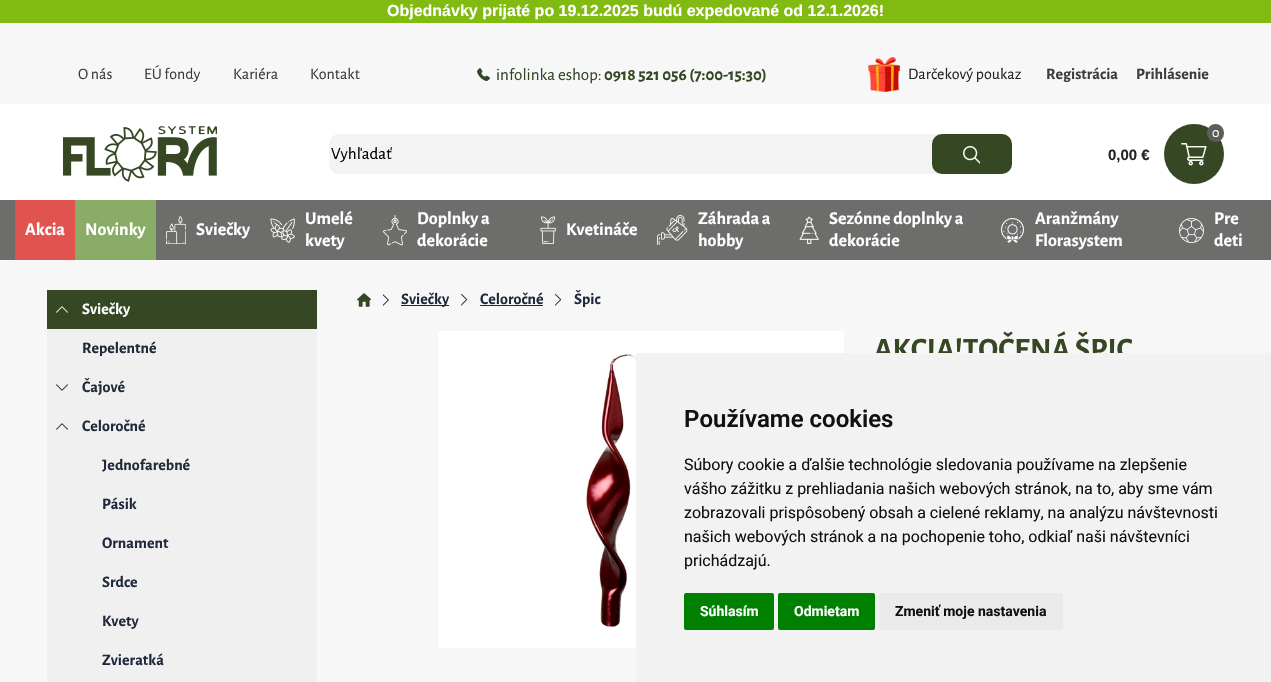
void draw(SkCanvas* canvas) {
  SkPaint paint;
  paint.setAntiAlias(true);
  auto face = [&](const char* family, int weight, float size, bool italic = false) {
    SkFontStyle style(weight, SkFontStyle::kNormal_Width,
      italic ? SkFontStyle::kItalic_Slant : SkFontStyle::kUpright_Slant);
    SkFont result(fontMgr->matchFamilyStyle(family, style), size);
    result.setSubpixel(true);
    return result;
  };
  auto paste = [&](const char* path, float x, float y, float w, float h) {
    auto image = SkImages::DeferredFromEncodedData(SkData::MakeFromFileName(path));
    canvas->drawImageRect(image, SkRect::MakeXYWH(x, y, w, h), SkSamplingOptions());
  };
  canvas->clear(0xfff7f7f7);
  paint.setColor(0xff81ba10);
  canvas->drawRect(SkRect::MakeXYWH(0, 0, 1271, 23), paint);
  paste("img/1.png", 477, 68, 13, 13);
  paste("img/2.png", 868, 57, 32, 35);
  paint.setColor(0xffffffff);
  canvas->drawRect(SkRect::MakeXYWH(0, 104, 1271, 96), paint);
  paste("img/3.png", 63, 126, 154, 56);
  paint.setColor(0xfff3f3f3);
  canvas->drawRoundRect(SkRect::MakeXYWH(329, 134, 683, 40), 10, 10, paint);
  paint.setColor(0xff354723);
  canvas->drawRoundRect(SkRect::MakeXYWH(932, 134, 80, 40), 10, 10, paint);
  paste("img/4.png", 963, 146, 17, 18);
  canvas->drawCircle(1194, 154, 30, paint);
  paint.setColor(0xff5e5d5a);
  canvas->drawRoundRect(SkRect::MakeXYWH(1207, 124, 17, 18), 8.5f, 8.5f, paint);
  paste("img/5.png", 1181, 143, 26, 23);
  {
    const struct { float x, y, w, h; SkColor color; } items[] = {
      {0, 200, 1271, 60, 0xff6d6e6b},
      {15, 200, 60, 60, 0xffe0534f},
      {75, 200, 81, 60, 0xff89ac66},
    };
    for (auto [x, y, w, h, color] : items) {
      paint.setColor(color);
      canvas->drawRect(SkRect::MakeXYWH(x, y, w, h), paint);
    }
  }
  paste("img/6.png", 166, 216, 20, 28);
  paste("img/7.png", 270, 218, 25, 25);
  paste("img/8.png", 383, 215, 24, 31);
  paste("img/9.png", 540, 216, 16, 28);
  paste("img/10.png", 657, 215, 31, 30);
  paste("img/11.png", 799, 216, 20, 28);
  paste("img/12.png", 1000, 218, 25, 25);
  paste("img/13.png", 1179, 218, 25, 25);
  paint.setColor(0xff354723);
  canvas->drawRect(SkRect::MakeXYWH(47, 290, 270, 39), paint);
  paste("img/14.png", 56, 306, 12, 7);
  paint.setColor(0xfff0f0f0);
  canvas->drawRect(SkRect::MakeXYWH(47, 329, 270, 353), paint);
  paste("img/15.png", 56, 384, 12, 7);
  paste("img/16.png", 56, 423, 12, 7);
  paste("img/17.png", 357, 293, 14, 14);
  paste("img/18.png", 382, 294, 7, 12);
  paint.setColor(0xff20293b);
  canvas->drawRect(SkRect::MakeXYWH(401, 305, 48, 1), paint);
  paste("img/19.png", 461, 293, 7, 13);
  canvas->drawRect(SkRect::MakeXYWH(480, 305, 63, 1), paint);
  paste("img/20.png", 555, 293, 7, 13);
  paint.setColor(0xffffffff);
  canvas->drawRect(SkRect::MakeXYWH(438, 331, 406, 317), paint);
  paste("img/21.png", 584, 351, 111, 278);
  auto f0 = face("Liberation Sans", 700, 16);
  canvas->drawString("Objednávky prijaté po 19.12.2025 budú expedované od 12.1.2026!", 387, 16, f0, paint);
  auto f1 = face("Alegreya Sans", 400, 16);
  paint.setColor(0xff3d3d3d);
  {
    const struct { const char* s; float x, y; } items[] = {
      {"O nás", 78, 79},
      {"EÚ fondy", 144, 79},
      {"Kariéra", 233, 79},
      {"Kontakt", 310, 79},
    };
    for (auto [s, x, y] : items) {
      canvas->drawString(s, x, y, f1, paint);
    }
  }
  auto f2 = face("Alegreya Sans", 400, 17);
  paint.setColor(0xff354723);
  canvas->drawString("infolinka eshop:", 496, 80, f2, paint);
  auto f3 = face("Alegreya Sans", 700, 17);
  canvas->drawString("0918 521 056 (7:00-15:30)", 604, 80, f3, paint);
  paint.setColor(0xff242424);
  canvas->drawString("Darčekový poukaz", 908, 79, f1, paint);
  auto f4 = face("Alegreya Sans", 700, 16);
  paint.setColor(0xff3d3d3d);
  canvas->drawString("Registrácia", 1046, 79, f4, paint);
  canvas->drawString("Prihlásenie", 1136, 79, f4, paint);
  paint.setColor(0xff000000);
  canvas->drawString("Vyhľadať", 331, 159, f2, paint);
  auto f5 = face("Alegreya Sans", 400, 14);
  paint.setColor(0xffffffff);
  canvas->drawString("0", 1212, 137, f5, paint);
  auto f6 = face("Liberation Sans", 700, 15);
  paint.setColor(0xff242424);
  canvas->drawString("0,00 €", 1108, 160, f6, paint);
  auto f7 = face("Alegreya Sans", 700, 18);
  paint.setColor(0xffffffff);
  {
    const struct { const char* s; float x, y; } items[] = {
      {"Akcia", 25, 235},
      {"Novinky", 85, 235},
      {"Sviečky", 196, 235},
      {"Umelé", 305, 224},
      {"kvety", 305, 246},
      {"Doplnky a", 417, 224},
      {"dekorácie", 417, 246},
      {"Kvetináče", 566, 235},
      {"Záhrada a", 698, 224},
      {"hobby", 698, 246},
      {"Sezónne doplnky a", 829, 224},
      {"dekorácie", 829, 246},
      {"Aranžmány", 1035, 224},
      {"Florasystem", 1035, 246},
      {"Pre", 1214, 224},
      {"deti", 1214, 246},
    };
    for (auto [s, x, y] : items) {
      canvas->drawString(s, x, y, f7, paint);
    }
  }
  canvas->drawString("Sviečky", 82, 314, f4, paint);
  paint.setColor(0xff20293b);
  {
    const struct { const char* s; float x, y; } items[] = {
      {"Repelentné", 82, 353},
      {"Čajové", 82, 392},
      {"Celoročné", 82, 431},
      {"Jednofarebné", 102, 470},
      {"Pásik", 102, 509},
      {"Ornament", 102, 548},
      {"Srdce", 102, 587},
      {"Kvety", 102, 626},
      {"Zvieratká", 102, 665},
      {"Sviečky", 401, 304},
      {"Celoročné", 480, 304},
      {"Špic", 574, 304},
    };
    for (auto [s, x, y] : items) {
      canvas->drawString(s, x, y, f4, paint);
    }
  }
  auto f8 = face("Alegreya Sans", 700, 31);
  paint.setColor(0xff354723);
  canvas->drawString("AKCIA!TOČENÁ ŠPIC", 874, 359, f8, paint);
  paint.setColor(0xfff2f2f2);
  canvas->drawRect(SkRect::MakeXYWH(636, 353, 635, 329), paint);
  auto f9 = face("Roboto", 600, 24);
  paint.setColor(0xff111111);
  canvas->drawString("Používame cookies", 684, 427, f9, paint);
  auto f10 = face("Roboto", 400, 16);
  {
    const struct { const char* s; float x, y; } items[] = {
      {"Súbory cookie a ďalšie technológie sledovania používame na zlepšenie", 684, 470},
      {"vášho zážitku z prehliadania našich webových stránok, na to, aby sme vám", 684, 494},
      {"zobrazovali prispôsobený obsah a cielené reklamy, na analýzu návštevnosti", 684, 518},
      {"našich webových stránok a na pochopenie toho, odkiaľ naši návštevníci", 684, 542},
      {"prichádzajú.", 684, 566},
    };
    for (auto [s, x, y] : items) {
      canvas->drawString(s, x, y, f10, paint);
    }
  }
  paint.setColor(0xff008000);
  canvas->drawRoundRect(SkRect::MakeXYWH(684, 593, 90, 37), 2, 2, paint);
  auto f11 = face("Roboto", 700, 14);
  paint.setColor(0xffffffff);
  canvas->drawString("Súhlasím", 700, 616, f11, paint);
  paint.setColor(0xff008000);
  canvas->drawRoundRect(SkRect::MakeXYWH(778, 593, 97, 37), 2, 2, paint);
  paint.setColor(0xffffffff);
  canvas->drawString("Odmietam", 794, 616, f11, paint);
  paint.setColor(0xffeaeaea);
  canvas->drawRoundRect(SkRect::MakeXYWH(879, 593, 184, 37), 2, 2, paint);
  paint.setColor(0xff111111);
  canvas->drawString("Zmeniť moje nastavenia", 895, 616, f11, paint);
}
